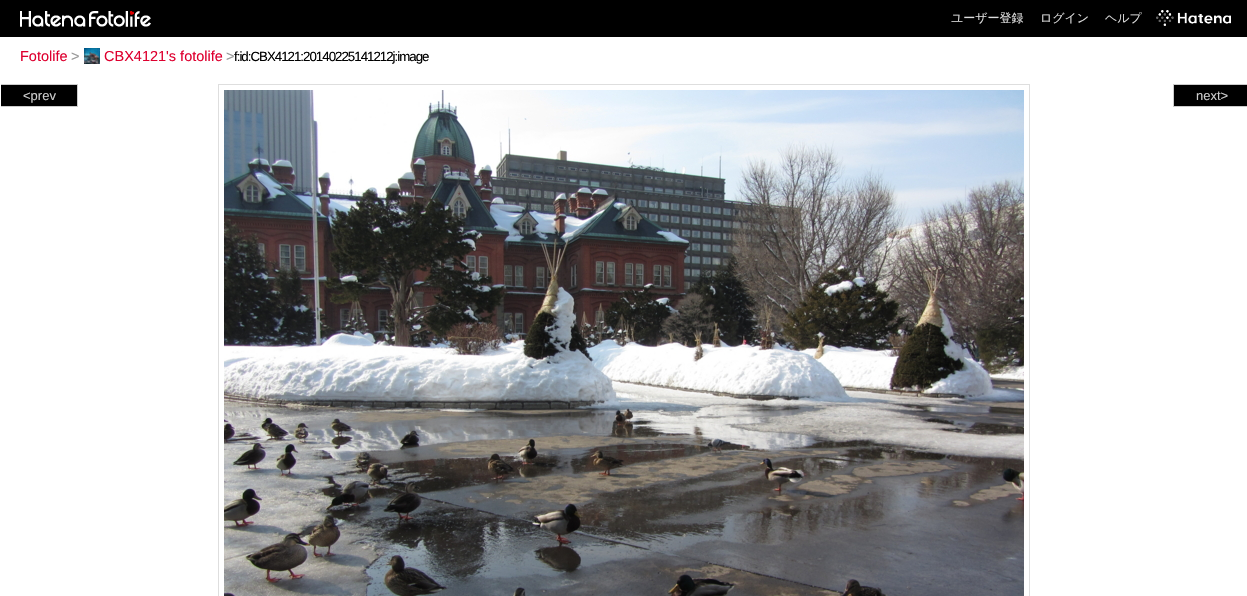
void draw(SkCanvas* canvas) {
  SkPaint paint;
  paint.setAntiAlias(true);
  auto face = [&](const char* family, int weight, float size, bool italic = false) {
    SkFontStyle style(weight, SkFontStyle::kNormal_Width,
      italic ? SkFontStyle::kItalic_Slant : SkFontStyle::kUpright_Slant);
    SkFont result(fontMgr->matchFamilyStyle(family, style), size);
    result.setSubpixel(true);
    return result;
  };
  auto writeSpaced = [&](const char* s, float x, float y, const SkFont& font, const SkPaint& ink, float letter, float word) {
    std::vector<SkGlyphID> glyphs(font.countText(s, strlen(s), SkTextEncoding::kUTF8));
    std::vector<float> xs(glyphs.size());
    font.textToGlyphs(s, strlen(s), SkTextEncoding::kUTF8, glyphs);
    font.getXPos(glyphs, xs, x);
    float extra = 0;
    for (size_t i = 0; i < glyphs.size(); i++) {
      xs[i] += extra;
      extra += letter + word * (glyphs[i] == font.unicharToGlyph(' '));
    }
    canvas->drawTextBlob(SkTextBlob::MakeFromPosHGlyphs(glyphs, xs, y, font), 0, 0, ink);
  };
  auto paste = [&](const char* path, float x, float y, float w, float h) {
    auto image = SkImages::DeferredFromEncodedData(SkData::MakeFromFileName(path));
    canvas->drawImageRect(image, SkRect::MakeXYWH(x, y, w, h), SkSamplingOptions());
  };
  canvas->clear(0xffffffff);
  paint.setColor(0xff000000);
  canvas->drawRect(SkRect::MakeXYWH(0, 0, 1247, 37), paint);
  paste("img/1.png", 20, 11, 66, 16);
  paste("img/2.png", 89, 11, 62, 16);
  paste("img/3.png", 1156, 10, 75, 16);
  paste("img/4.png", 84, 48, 16, 16);
  {
    const struct { float x, y, w, h; SkColor color; } items[] = {
      {1, 85, 76, 21, 0xff000000},
      {1, 84, 77, 1, 0xffcccccc},
      {77, 84, 1, 23, 0xffcccccc},
      {1, 106, 77, 1, 0xffcccccc},
    };
    for (auto [x, y, w, h, color] : items) {
      paint.setColor(color);
      canvas->drawRect(SkRect::MakeXYWH(x, y, w, h), paint);
    }
  }
  paint.setStroke(true);
  paint.setStrokeWidth(1);
  paint.setColor(0xffdedede);
  canvas->drawRect(SkRect::MakeXYWH(218.5f, 84.5f, 811, 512), paint);
  paste("img/5.png", 224, 90, 800, 506);
  paint.setStroke(false);
  {
    const struct { float x, y, w, h; SkColor color; } items[] = {
      {1174, 85, 73, 21, 0xff000000},
      {1173, 84, 74, 1, 0xffcccccc},
      {1173, 106, 74, 1, 0xffcccccc},
      {1173, 84, 1, 23, 0xffcccccc},
    };
    for (auto [x, y, w, h, color] : items) {
      paint.setColor(color);
      canvas->drawRect(SkRect::MakeXYWH(x, y, w, h), paint);
    }
  }
  auto f0 = face("WenQuanYi Zen Hei", 500, 12);
  paint.setColor(0xffdddddd);
  {
    const struct { const char* s; float x, y; } items[] = {
      {"ユーザー登録", 951, 22},
      {"ログイン", 1040, 22},
      {"ヘルプ", 1105, 22},
    };
    for (auto [s, x, y] : items) {
      canvas->drawString(s, x, y, f0, paint);
    }
  }
  auto f1 = face("Liberation Sans", 400, 14.5f);
  paint.setColor(0xffde002f);
  canvas->drawString("Fotolife", 20, 61, f1, paint);
  paint.setColor(0xff999999);
  canvas->drawString(">", 71, 61, f1, paint);
  paint.setColor(0xffde002f);
  canvas->drawString("CBX4121's fotolife", 104, 61, f1, paint);
  paint.setColor(0xff999999);
  canvas->drawString(">", 226, 61, f1, paint);
  auto f2 = face("Liberation Sans", 400, 13.3f);
  paint.setColor(0xff000000);
  writeSpaced("f:id:CBX4121:20140225141212j:image", 234, 61, f2, paint, -1, 0);
  auto f3 = face("Liberation Sans", 400, 13);
  paint.setColor(0xffcccccc);
  canvas->drawString("<prev", 23, 100, f3, paint);
  canvas->drawString("next>", 1196, 100, f3, paint);
}
